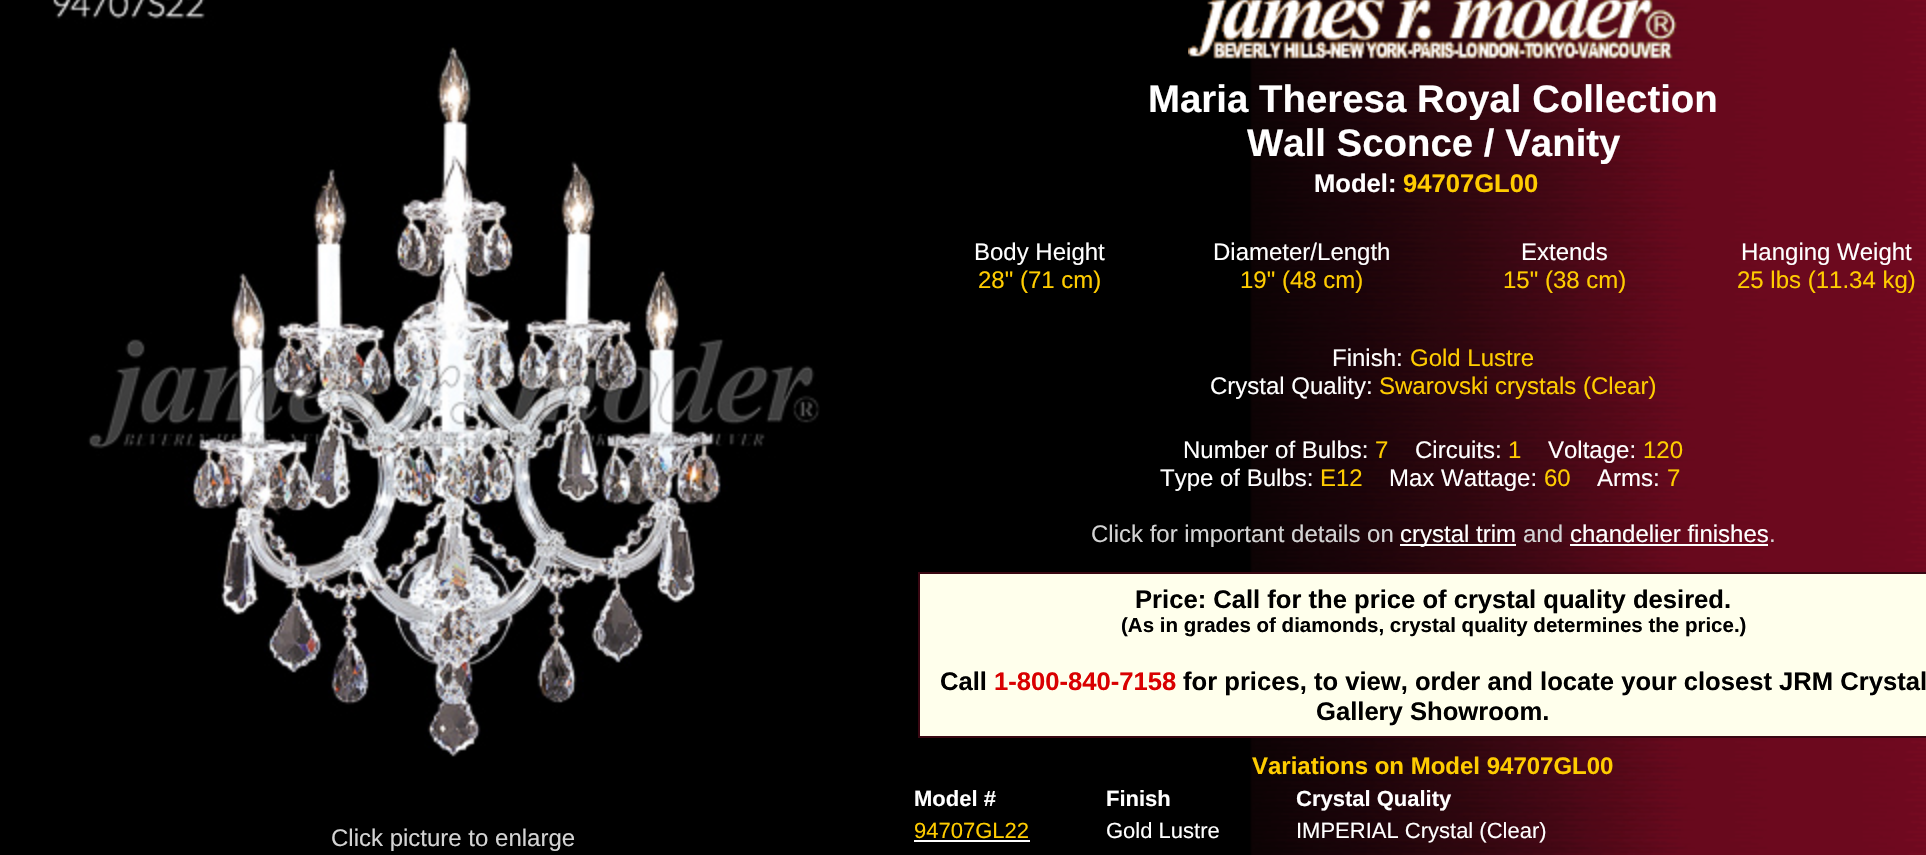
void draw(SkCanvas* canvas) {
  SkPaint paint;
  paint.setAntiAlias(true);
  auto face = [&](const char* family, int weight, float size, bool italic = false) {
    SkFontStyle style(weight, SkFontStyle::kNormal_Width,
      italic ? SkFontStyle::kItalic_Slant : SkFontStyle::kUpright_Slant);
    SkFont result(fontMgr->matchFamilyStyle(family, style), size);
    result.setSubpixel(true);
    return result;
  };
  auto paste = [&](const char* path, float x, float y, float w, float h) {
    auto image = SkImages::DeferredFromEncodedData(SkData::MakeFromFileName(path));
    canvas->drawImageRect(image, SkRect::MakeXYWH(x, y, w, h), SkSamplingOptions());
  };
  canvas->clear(0xff000000);
  paste("img/1.png", 52, 0, 768, 757);
  paste("img/2.png", 1250, 0, 676, 855);
  paste("img/3.png", 1188, 0, 489, 59);
  paint.setColor(0xffffffff);
  canvas->drawRect(SkRect::MakeXYWH(1400, 544, 116, 2), paint);
  canvas->drawRect(SkRect::MakeXYWH(1570, 544, 198, 2), paint);
  paint.setColor(0xffffffec);
  canvas->drawRect(SkRect::MakeXYWH(919, 573, 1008, 164), paint);
  paint.setStroke(true);
  paint.setStrokeWidth(2);
  paint.setColor(0xff390712);
  canvas->drawRect(SkRect::MakeXYWH(919, 573, 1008, 164), paint);
  paint.setStroke(false);
  paint.setColor(0xffffffff);
  canvas->drawRect(SkRect::MakeXYWH(914, 840, 116, 2), paint);
  auto f0 = face("Liberation Sans", 400, 24);
  paint.setColor(0xffd3d3d3);
  canvas->drawString("Click picture to enlarge", 331, 846, f0, paint);
  auto f1 = face("Liberation Sans", 700, 38.4f);
  paint.setColor(0xffffffff);
  canvas->drawString("Maria Theresa Royal Collection", 1148, 112, f1, paint);
  canvas->drawString("Wall Sconce / Vanity", 1247, 156, f1, paint);
  auto f2 = face("Liberation Sans", 700, 25.6f);
  canvas->drawString("Model:", 1314, 192, f2, paint);
  paint.setColor(0xffffcc00);
  canvas->drawString("94707GL00", 1403, 192, f2, paint);
  paint.setColor(0xffffffff);
  canvas->drawString("Body Height", 974, 260, f0, paint);
  paint.setColor(0xffffcc00);
  canvas->drawString("28\" (71 cm)", 978, 288, f0, paint);
  paint.setColor(0xffffffff);
  canvas->drawString("Diameter/Length", 1213, 260, f0, paint);
  paint.setColor(0xffffcc00);
  canvas->drawString("19\" (48 cm)", 1240, 288, f0, paint);
  paint.setColor(0xffffffff);
  canvas->drawString("Extends", 1521, 260, f0, paint);
  paint.setColor(0xffffcc00);
  canvas->drawString("15\" (38 cm)", 1503, 288, f0, paint);
  paint.setColor(0xffffffff);
  canvas->drawString("Hanging Weight", 1741, 260, f0, paint);
  paint.setColor(0xffffcc00);
  canvas->drawString("25 lbs (11.34 kg)", 1737, 288, f0, paint);
  paint.setColor(0xffffffff);
  canvas->drawString("Finish:", 1332, 366, f0, paint);
  paint.setColor(0xffffcc00);
  canvas->drawString("Gold Lustre", 1410, 366, f0, paint);
  paint.setColor(0xffffffff);
  canvas->drawString("Crystal Quality:", 1210, 394, f0, paint);
  paint.setColor(0xffffcc00);
  canvas->drawString("Swarovski crystals (Clear)", 1379, 394, f0, paint);
  paint.setColor(0xffffffff);
  canvas->drawString("Number of Bulbs:", 1183, 458, f0, paint);
  paint.setColor(0xffffcc00);
  canvas->drawString("7", 1375, 458, f0, paint);
  paint.setColor(0xffffffff);
  canvas->drawString("Circuits:", 1415, 458, f0, paint);
  paint.setColor(0xffffcc00);
  canvas->drawString("1", 1508, 458, f0, paint);
  paint.setColor(0xffffffff);
  canvas->drawString("Voltage:", 1548, 458, f0, paint);
  paint.setColor(0xffffcc00);
  canvas->drawString("120", 1643, 458, f0, paint);
  paint.setColor(0xffffffff);
  canvas->drawString("Type of Bulbs:", 1160, 486, f0, paint);
  paint.setColor(0xffffcc00);
  canvas->drawString("E12", 1320, 486, f0, paint);
  paint.setColor(0xffffffff);
  canvas->drawString("Max Wattage:", 1389, 486, f0, paint);
  paint.setColor(0xffffcc00);
  canvas->drawString("60", 1544, 486, f0, paint);
  paint.setColor(0xffffffff);
  canvas->drawString("Arms:", 1597, 486, f0, paint);
  paint.setColor(0xffffcc00);
  canvas->drawString("7", 1667, 486, f0, paint);
  paint.setColor(0xffd3d3d3);
  canvas->drawString("Click for important details on", 1091, 542, f0, paint);
  paint.setColor(0xffffffff);
  canvas->drawString("crystal trim", 1400, 542, f0, paint);
  paint.setColor(0xffd3d3d3);
  canvas->drawString("and", 1523, 542, f0, paint);
  paint.setColor(0xffffffff);
  canvas->drawString("chandelier finishes", 1570, 542, f0, paint);
  paint.setColor(0xffd3d3d3);
  canvas->drawString(".", 1769, 542, f0, paint);
  paint.setColor(0xff000000);
  canvas->drawString("Price: Call for the price of crystal quality desired.", 1135, 608, f2, paint);
  auto f3 = face("Liberation Sans", 700, 20.5f);
  canvas->drawString("(As in grades of diamonds, crystal quality determines the price.)", 1121, 632, f3, paint);
  canvas->drawString("Call", 940, 690, f2, paint);
  paint.setColor(0xffd90000);
  canvas->drawString("1-800-840-7158", 994, 690, f2, paint);
  paint.setColor(0xff000000);
  canvas->drawString("for prices, to view, order and locate your closest JRM Crystal", 1183, 690, f2, paint);
  canvas->drawString("Gallery Showroom.", 1316, 720, f2, paint);
  auto f4 = face("Liberation Sans", 700, 24);
  paint.setColor(0xffffcc00);
  canvas->drawString("Variations on Model 94707GL00", 1252, 774, f4, paint);
  auto f5 = face("Liberation Sans", 700, 22);
  paint.setColor(0xffffffff);
  {
    const struct { const char* s; float x, y; } items[] = {
      {"Model #", 914, 806},
      {"Finish", 1106, 806},
      {"Crystal Quality", 1296, 806},
    };
    for (auto [s, x, y] : items) {
      canvas->drawString(s, x, y, f5, paint);
    }
  }
  auto f6 = face("Liberation Sans", 400, 22);
  paint.setColor(0xffffcc00);
  canvas->drawString("94707GL22", 914, 838, f6, paint);
  paint.setColor(0xffffffff);
  canvas->drawString("Gold Lustre", 1106, 838, f6, paint);
  canvas->drawString("IMPERIAL Crystal (Clear)", 1296, 838, f6, paint);
}
